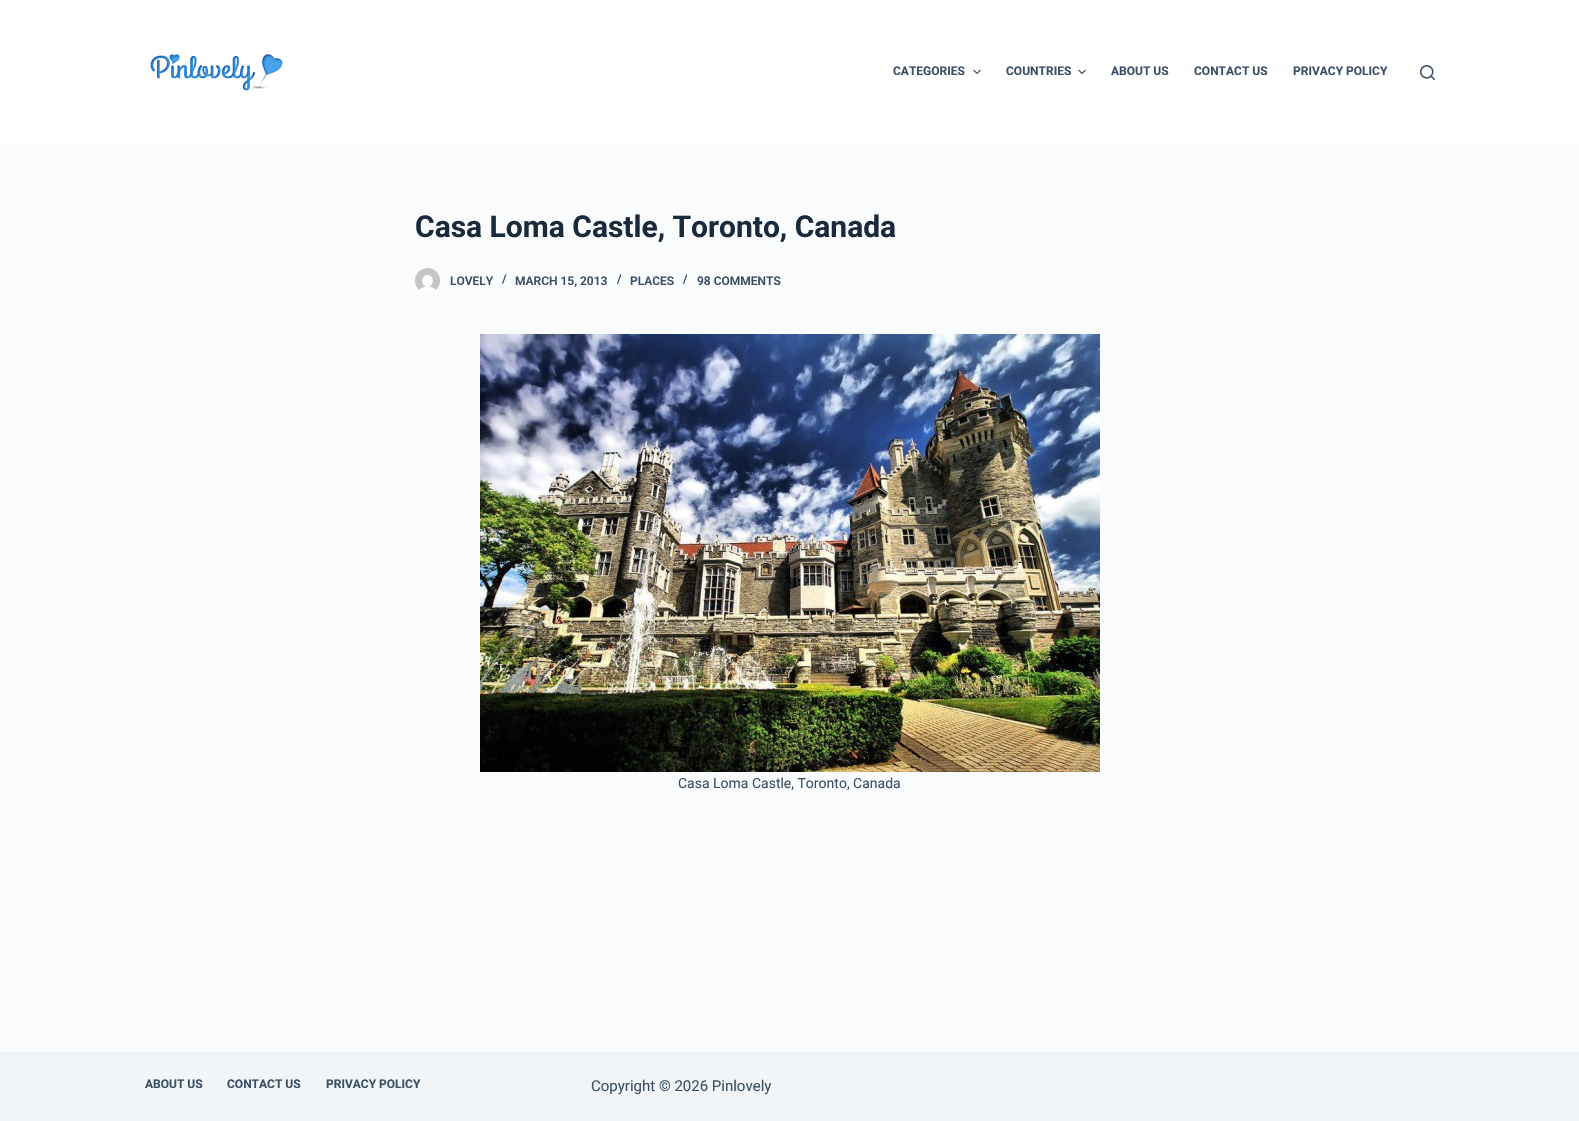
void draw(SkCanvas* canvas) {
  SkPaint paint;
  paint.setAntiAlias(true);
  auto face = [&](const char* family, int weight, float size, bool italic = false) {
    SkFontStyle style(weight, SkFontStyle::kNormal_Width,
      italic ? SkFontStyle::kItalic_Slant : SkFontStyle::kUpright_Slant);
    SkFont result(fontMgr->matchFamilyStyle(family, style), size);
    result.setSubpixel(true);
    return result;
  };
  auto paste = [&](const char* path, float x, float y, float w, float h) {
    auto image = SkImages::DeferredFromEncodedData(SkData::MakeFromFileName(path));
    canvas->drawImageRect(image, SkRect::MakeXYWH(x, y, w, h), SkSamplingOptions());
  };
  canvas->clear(0xfffafbfc);
  paint.setColor(0xffffffff);
  canvas->drawRect(SkRect::MakeXYWH(0, 0, 1579, 144), paint);
  paste("img/1.png", 150, 54, 133, 37);
  paste("img/2.png", 973, 69, 8, 6);
  paste("img/2.png", 1078, 69, 8, 6);
  paste("img/3.png", 1420, 65, 15, 15);
  paste("img/4.png", 415, 268, 25, 25);
  paste("img/5.png", 480, 334, 620, 438);
  paint.setColor(0xfff2f5f7);
  canvas->drawRect(SkRect::MakeXYWH(0, 1052, 1579, 69), paint);
  auto f0 = face("Roboto", 700, 12);
  paint.setColor(0xff3a4f66);
  {
    const struct { const char* s; float x, y; } items[] = {
      {"CATEGORIES", 893, 75},
      {"COUNTRIES", 1006, 75},
      {"ABOUT US", 1111, 75},
      {"CONTACT US", 1194, 75},
      {"PRIVACY POLICY", 1293, 75},
    };
    for (auto [s, x, y] : items) {
      canvas->drawString(s, x, y, f0, paint);
    }
  }
  auto f1 = face("Roboto", 700, 30);
  paint.setColor(0xff192a3d);
  canvas->drawString("Casa Loma Castle, Toronto, Canada", 415, 237, f1, paint);
  auto f2 = face("Roboto", 600, 12);
  paint.setColor(0xff3a4f66);
  {
    const struct { const char* s; float x, y; } items[] = {
      {"LOVELY", 450, 285},
      {"/", 502, 283},
      {"MARCH 15, 2013", 515, 285},
      {"/", 617, 283},
      {"PLACES", 630, 285},
      {"/", 683, 283},
      {"98 COMMENTS", 697, 285},
    };
    for (auto [s, x, y] : items) {
      canvas->drawString(s, x, y, f2, paint);
    }
  }
  auto f3 = face("Roboto", 400, 14);
  canvas->drawString("Casa Loma Castle, Toronto, Canada", 678, 788, f3, paint);
  {
    const struct { const char* s; float x, y; } items[] = {
      {"ABOUT US", 145, 1088},
      {"CONTACT US", 227, 1088},
      {"PRIVACY POLICY", 326, 1088},
    };
    for (auto [s, x, y] : items) {
      canvas->drawString(s, x, y, f0, paint);
    }
  }
  auto f4 = face("Roboto", 400, 15);
  canvas->drawString("Copyright © 2026 Pinlovely", 591, 1091, f4, paint);
}
